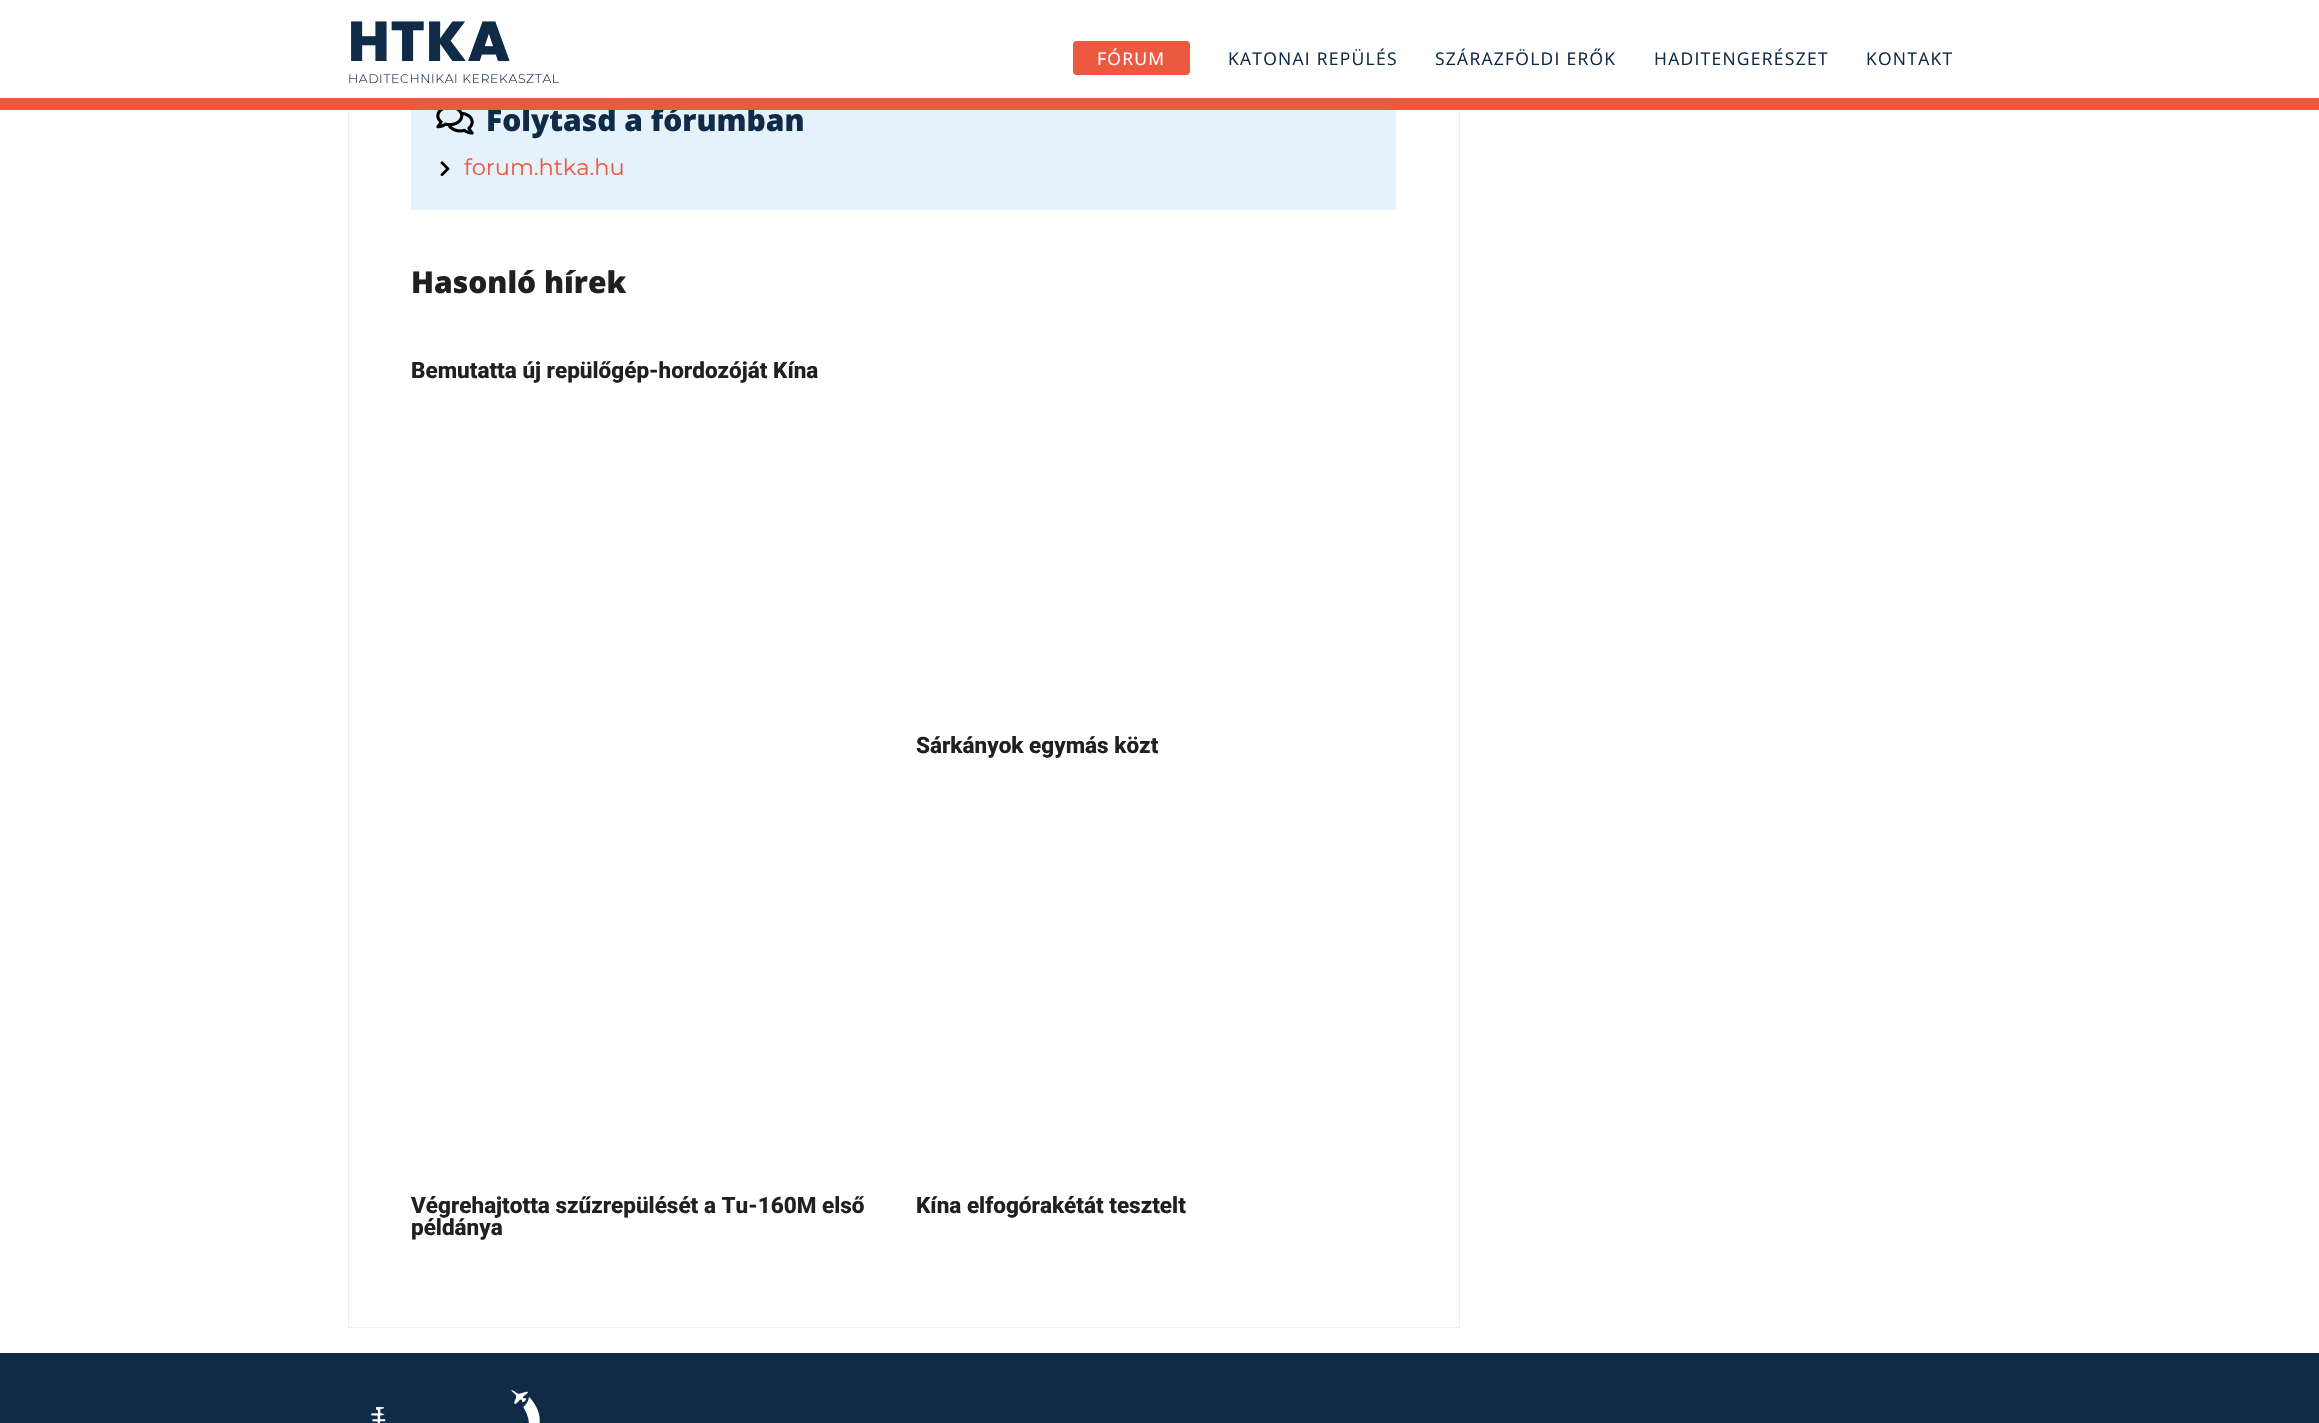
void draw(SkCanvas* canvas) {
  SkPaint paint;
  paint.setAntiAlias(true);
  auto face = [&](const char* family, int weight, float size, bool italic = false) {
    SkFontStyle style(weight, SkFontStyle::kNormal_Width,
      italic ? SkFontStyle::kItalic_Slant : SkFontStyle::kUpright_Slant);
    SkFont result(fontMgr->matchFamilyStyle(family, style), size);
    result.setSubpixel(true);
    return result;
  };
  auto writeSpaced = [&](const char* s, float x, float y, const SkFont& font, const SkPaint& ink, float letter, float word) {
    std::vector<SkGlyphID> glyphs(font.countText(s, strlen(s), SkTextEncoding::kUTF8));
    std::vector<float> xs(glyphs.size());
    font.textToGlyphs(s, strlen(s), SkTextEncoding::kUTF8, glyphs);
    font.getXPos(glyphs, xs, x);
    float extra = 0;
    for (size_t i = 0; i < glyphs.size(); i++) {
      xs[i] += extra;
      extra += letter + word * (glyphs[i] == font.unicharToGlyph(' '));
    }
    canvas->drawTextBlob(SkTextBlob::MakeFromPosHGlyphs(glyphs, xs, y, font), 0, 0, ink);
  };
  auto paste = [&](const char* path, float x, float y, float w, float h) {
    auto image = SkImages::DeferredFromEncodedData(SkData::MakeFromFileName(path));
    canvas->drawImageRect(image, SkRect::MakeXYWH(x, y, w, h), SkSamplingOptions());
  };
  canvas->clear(0xffffffff);
  paint.setStroke(true);
  paint.setStrokeWidth(1);
  paint.setColor(0xffeeeeee);
  canvas->drawRect(SkRect::MakeXYWH(348.5f, -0.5f, 1111, 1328), paint);
  paint.setStroke(false);
  paint.setColor(0xffffffff);
  canvas->drawRect(SkRect::MakeXYWH(348, 0, 1112, 98), paint);
  paint.setColor(0xffec5840);
  canvas->drawRoundRect(SkRect::MakeXYWH(1073, 41, 117, 34), 4, 4, paint);
  paint.setColor(0xffe5f2fc);
  canvas->drawRect(SkRect::MakeXYWH(411, 110, 985, 100), paint);
  paste("img/1.png", 436, 110, 38, 25);
  paste("img/2.png", 440, 161, 10, 16);
  paint.setColor(0xff0f2b48);
  canvas->drawRect(SkRect::MakeXYWH(0, 1353, 2319, 70), paint);
  paste("img/3.png", 371, 1390, 169, 33);
  auto f0 = face("Poppins", 800, 56);
  writeSpaced("HTKA", 348, 61, f0, paint, 1.25f, 0);
  auto f1 = face("Montserrat", 300, 12.5f);
  writeSpaced("HADITECHNIKAI KEREKASZTAL", 348, 83, f1, paint, 0.6f, 0);
  auto f2 = face("Open Sans", 400, 17.5f);
  paint.setColor(0xffffffff);
  writeSpaced("FÓRUM", 1097, 65, f2, paint, 1.25f, 0);
  paint.setColor(0xff0f2b48);
  {
    const struct { const char* s; float x, y; } items[] = {
      {"KATONAI REPÜLÉS", 1228, 65},
      {"SZÁRAZFÖLDI ERŐK", 1435, 65},
      {"HADITENGERÉSZET", 1654, 65},
      {"KONTAKT", 1866, 65},
    };
    for (auto [s, x, y] : items) {
      writeSpaced(s, x, y, f2, paint, 1.25f, 0);
    }
  }
  auto f3 = face("Open Sans", 800, 30);
  canvas->drawString("Folytasd a fórumban", 486, 131, f3, paint);
  paint.setColor(0xffec5840);
  canvas->drawRect(SkRect::MakeXYWH(0, 98, 2319, 12), paint);
  auto f4 = face("Montserrat", 400, 22.5f);
  canvas->drawString("forum.htka.hu", 464, 175, f4, paint);
  paint.setColor(0xff202020);
  canvas->drawString("Hasonló hírek", 411, 293, f3, paint);
  auto f5 = face("Roboto", 800, 22.5f);
  {
    const struct { const char* s; float x, y; } items[] = {
      {"Bemutatta új repülőgép-hordozóját Kína", 411, 378},
      {"Sárkányok egymás közt", 916, 753},
      {"Végrehajtotta szűzrepülését a Tu-160M első", 411, 1213},
      {"példánya", 411, 1235},
      {"Kína elfogórakétát tesztelt", 916, 1213},
    };
    for (auto [s, x, y] : items) {
      canvas->drawString(s, x, y, f5, paint);
    }
  }
}
